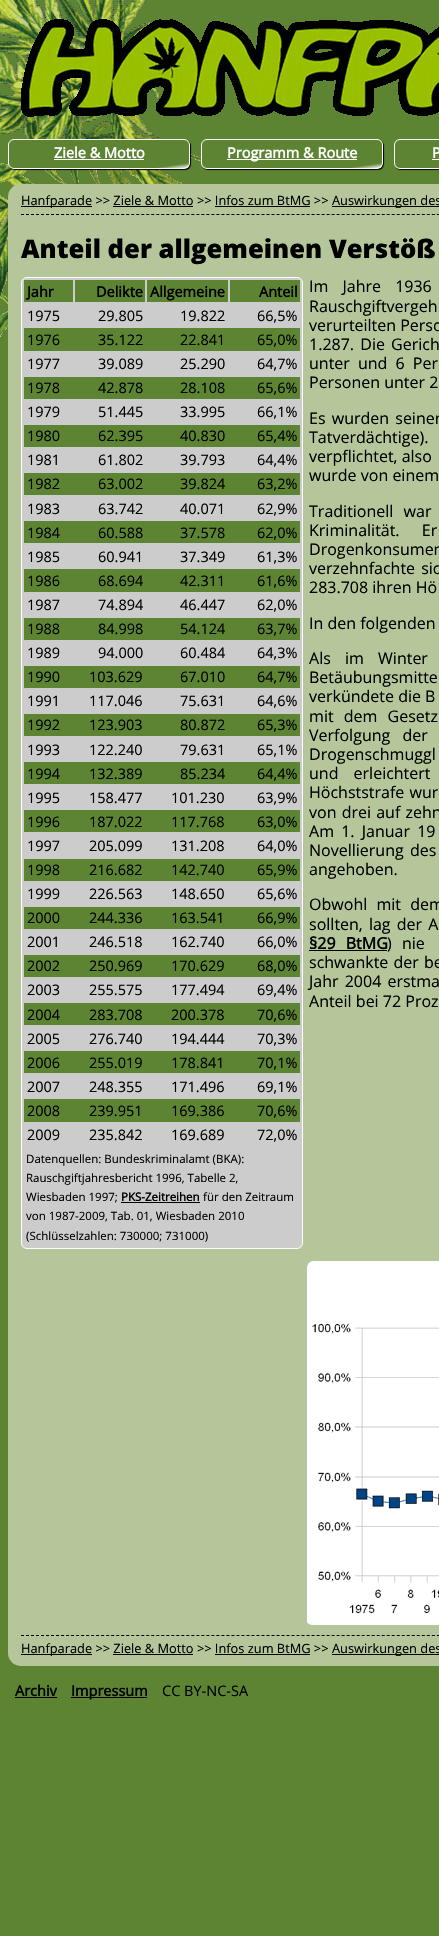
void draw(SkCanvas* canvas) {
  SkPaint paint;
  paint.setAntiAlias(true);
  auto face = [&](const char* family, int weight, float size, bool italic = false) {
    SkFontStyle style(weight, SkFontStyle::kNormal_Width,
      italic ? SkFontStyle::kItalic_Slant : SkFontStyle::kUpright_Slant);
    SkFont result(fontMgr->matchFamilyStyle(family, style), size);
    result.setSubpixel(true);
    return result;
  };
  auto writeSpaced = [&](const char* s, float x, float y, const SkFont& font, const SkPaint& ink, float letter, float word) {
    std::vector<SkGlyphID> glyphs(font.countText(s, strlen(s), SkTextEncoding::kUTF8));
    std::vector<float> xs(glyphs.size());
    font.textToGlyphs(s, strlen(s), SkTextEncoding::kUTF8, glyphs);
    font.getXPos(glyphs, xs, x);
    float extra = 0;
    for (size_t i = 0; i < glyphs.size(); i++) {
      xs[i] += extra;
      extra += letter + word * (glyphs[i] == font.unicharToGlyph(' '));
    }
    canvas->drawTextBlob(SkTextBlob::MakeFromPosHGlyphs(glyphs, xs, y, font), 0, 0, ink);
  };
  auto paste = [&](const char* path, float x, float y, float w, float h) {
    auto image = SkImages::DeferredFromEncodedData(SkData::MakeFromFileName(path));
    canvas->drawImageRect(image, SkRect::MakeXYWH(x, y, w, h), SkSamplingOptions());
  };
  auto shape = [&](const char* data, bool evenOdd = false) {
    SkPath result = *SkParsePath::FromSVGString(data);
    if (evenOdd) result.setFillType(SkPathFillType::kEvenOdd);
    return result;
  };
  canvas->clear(0xff5c8433);
  paste("img/1.png", 0, 0, 201, 337);
  paste("img/2.png", 21, 19, 418, 98);
  paint.setColor(0xff000000);
  paint.setMaskFilter(SkMaskFilter::MakeBlur(kNormal_SkBlurStyle, 0.5f));
  canvas->drawRoundRect(SkRect::MakeXYWH(9, 140, 182, 30), 6, 6, paint);
  paint.setMaskFilter(nullptr);
  canvas->save();
  canvas->clipPath(shape("M14 139H184C187.5 139 190 141.5 190 145V163C190 166.5 187.5 169 184 169H14C10.5 169 8 166.5 8 163V145C8 141.5 10.5 139 14 139Z"), true);
  {
    const SkColor colors[] = {0xff5c8433, 0xff5c8433, 0xffffffff};
    const float stops[] = {0, 0.9f, 1};
    const SkPoint ends[] = {{95, 127}, {103, 181}};
    paint.setShader(SkGradientShader::MakeLinear(ends, colors, stops, 3, SkTileMode::kClamp));
    paint.setAlpha(255);
  }
  canvas->drawRect(SkRect::MakeXYWH(9, 140, 180, 28), paint);
  canvas->restore();
  paint.setStroke(true);
  paint.setStrokeWidth(1);
  paint.setShader(nullptr);
  paint.setColor(0xffffffff);
  canvas->drawRoundRect(SkRect::MakeXYWH(8.5f, 139.5f, 181, 29), 5.5f, 5.5f, paint);
  paint.setStroke(false);
  canvas->drawRect(SkRect::MakeXYWH(54, 159, 90, 1), paint);
  paint.setColor(0xff000000);
  paint.setMaskFilter(SkMaskFilter::MakeBlur(kNormal_SkBlurStyle, 0.5f));
  canvas->drawRoundRect(SkRect::MakeXYWH(202, 140, 182, 30), 6, 6, paint);
  paint.setMaskFilter(nullptr);
  canvas->save();
  canvas->clipPath(shape("M207 139H377C380.5 139 383 141.5 383 145V163C383 166.5 380.5 169 377 169H207C203.5 169 201 166.5 201 163V145C201 141.5 203.5 139 207 139Z"), true);
  {
    const SkColor colors[] = {0xff5c8433, 0xff5c8433, 0xffffffff};
    const float stops[] = {0, 0.9f, 1};
    const SkPoint ends[] = {{288, 127}, {296, 181}};
    paint.setShader(SkGradientShader::MakeLinear(ends, colors, stops, 3, SkTileMode::kClamp));
    paint.setAlpha(255);
  }
  canvas->drawRect(SkRect::MakeXYWH(202, 140, 180, 28), paint);
  canvas->restore();
  paint.setStroke(true);
  paint.setShader(nullptr);
  paint.setColor(0xffffffff);
  canvas->drawRoundRect(SkRect::MakeXYWH(201.5f, 139.5f, 181, 29), 5.5f, 5.5f, paint);
  paint.setStroke(false);
  canvas->drawRect(SkRect::MakeXYWH(227, 159, 130, 1), paint);
  paint.setColor(0xff000000);
  paint.setMaskFilter(SkMaskFilter::MakeBlur(kNormal_SkBlurStyle, 0.5f));
  canvas->drawRoundRect(SkRect::MakeXYWH(395, 140, 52, 30), 6, 6, paint);
  paint.setMaskFilter(nullptr);
  canvas->save();
  canvas->clipPath(shape("M400 139H570C573.5 139 576 141.5 576 145V163C576 166.5 573.5 169 570 169H400C396.5 169 394 166.5 394 163V145C394 141.5 396.5 139 400 139Z"), true);
  {
    const SkColor colors[] = {0xff5c8433, 0xff5c8433, 0xffffffff};
    const float stops[] = {0, 0.9f, 1};
    const SkPoint ends[] = {{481, 127}, {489, 181}};
    paint.setShader(SkGradientShader::MakeLinear(ends, colors, stops, 3, SkTileMode::kClamp));
    paint.setAlpha(255);
  }
  canvas->drawRect(SkRect::MakeXYWH(395, 140, 44, 28), paint);
  canvas->restore();
  paint.setStroke(true);
  paint.setShader(nullptr);
  paint.setColor(0xffffffff);
  canvas->drawRoundRect(SkRect::MakeXYWH(394.5f, 139.5f, 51, 29), 5.5f, 5.5f, paint);
  paint.setStroke(false);
  canvas->drawRect(SkRect::MakeXYWH(432, 159, 7, 1), paint);
  paint.setColor(0xffb4c69a);
  canvas->drawRoundRect(SkRect::MakeXYWH(8, 184, 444, 1482), 13, 13, paint);
  paint.setStroke(true);
  paint.setColor(0xff000000);
  paint.setPathEffect(SkDashPathEffect::Make({{3, 2.01f}}, 0));
  canvas->drawPath(shape("M21 214.5H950"), paint);
  paint.setPathEffect(nullptr);
  paint.setStroke(false);
  {
    const struct { float x, y, w, h; SkColor color; } items[] = {
      {21, 206, 71, 1, 0xff000000},
      {332, 206, 107, 1, 0xff000000},
      {113, 206, 80, 1, 0xff000000},
      {215, 206, 95, 1, 0xff000000},
    };
    for (auto [x, y, w, h, color] : items) {
      paint.setColor(color);
      canvas->drawRect(SkRect::MakeXYWH(x, y, w, h), paint);
    }
  }
  paint.setColor(0xffcccccc);
  canvas->drawRoundRect(SkRect::MakeXYWH(21.5f, 277.5f, 281, 971), 5.5f, 5.5f, paint);
  paint.setStroke(true);
  paint.setColor(0xffffffff);
  canvas->drawRoundRect(SkRect::MakeXYWH(21.5f, 277.5f, 281, 971), 5.5f, 5.5f, paint);
  paint.setStroke(false);
  {
    const struct { float x, y, w, h; SkColor color; } items[] = {
      {24, 280, 49, 22, 0xff5c8433},
      {75, 280, 70, 22, 0xff5c8433},
      {147, 280, 81, 22, 0xff5c8433},
      {230, 280, 70, 22, 0xff5c8433},
      {24, 328, 276, 23, 0xff5c8433},
      {24, 377, 276, 22, 0xff5c8433},
      {24, 425, 276, 22, 0xff5c8433},
      {24, 473, 276, 22, 0xff5c8433},
      {24, 521, 276, 22, 0xff5c8433},
      {24, 569, 276, 23, 0xff5c8433},
      {24, 618, 276, 22, 0xff5c8433},
      {24, 666, 276, 22, 0xff5c8433},
      {24, 714, 276, 22, 0xff5c8433},
      {24, 762, 276, 22, 0xff5c8433},
      {24, 810, 276, 22, 0xff5c8433},
      {24, 859, 276, 22, 0xff5c8433},
      {24, 907, 276, 22, 0xff5c8433},
      {24, 955, 276, 22, 0xff5c8433},
      {24, 1003, 276, 22, 0xff5c8433},
      {24, 1051, 276, 22, 0xff5c8433},
      {24, 1099, 276, 23, 0xff5c8433},
      {121, 1202, 79, 1, 0xff000000},
      {309, 950, 78, 1, 0xff000000},
    };
    for (auto [x, y, w, h, color] : items) {
      paint.setColor(color);
      canvas->drawRect(SkRect::MakeXYWH(x, y, w, h), paint);
    }
  }
  paste("img/3.png", 307, 1261, 132, 364);
  paint.setStroke(true);
  paint.setPathEffect(SkDashPathEffect::Make({{3, 2.01f}}, 0));
  canvas->drawPath(shape("M21 1635.5H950"), paint);
  paint.setPathEffect(nullptr);
  paint.setStroke(false);
  {
    const struct { float x, y, w, h; SkColor color; } items[] = {
      {21, 1654, 71, 1, 0xff000000},
      {332, 1654, 107, 1, 0xff000000},
      {113, 1654, 80, 1, 0xff000000},
      {215, 1654, 95, 1, 0xff000000},
      {15, 1697, 42, 1, 0xff000000},
      {71, 1697, 76, 1, 0xff000000},
    };
    for (auto [x, y, w, h, color] : items) {
      paint.setColor(color);
      canvas->drawRect(SkRect::MakeXYWH(x, y, w, h), paint);
    }
  }
  auto f0 = face("Open Sans", 700, 14.5f);
  paint.setColor(0xffffffff);
  {
    const struct { const char* s; float x, y; } items[] = {
      {"Ziele & Motto", 54, 158},
      {"Programm & Route", 227, 158},
      {"P", 432, 158},
    };
    for (auto [s, x, y] : items) {
      canvas->drawString(s, x, y, f0, paint);
    }
  }
  auto f1 = face("Open Sans", 400, 12.8f);
  paint.setColor(0xff000000);
  canvas->drawString("Hanfparade >> Ziele & Motto >> Infos zum BtMG >>", 21, 205, f1, paint);
  canvas->drawString("Auswirkungen des", 332, 205, f1, paint);
  auto f2 = face("Open Sans", 800, 25.6f);
  canvas->drawString("Anteil der allgemeinen Verstöß", 21, 258, f2, paint);
  {
    const struct { const char* s; float x, y; } items[] = {
      {"Jahr", 27, 297},
      {"Delikte", 96, 297},
      {"Allgemeine", 150, 297},
      {"Anteil", 259, 297},
    };
    for (auto [s, x, y] : items) {
      canvas->drawString(s, x, y, f0, paint);
    }
  }
  auto f3 = face("Open Sans", 400, 14.5f);
  {
    const struct { const char* s; float x, y; } items[] = {
      {"1975", 27, 321},
      {"29.805", 98, 321},
      {"19.822", 180, 321},
      {"66,5%", 257, 321},
      {"1976", 27, 345},
      {"35.122", 98, 345},
      {"22.841", 180, 345},
      {"65,0%", 257, 345},
      {"1977", 27, 369},
      {"39.089", 98, 369},
      {"25.290", 180, 369},
      {"64,7%", 257, 369},
      {"1978", 27, 393},
      {"42.878", 98, 393},
      {"28.108", 180, 393},
      {"65,6%", 257, 393},
      {"1979", 27, 417},
      {"51.445", 98, 417},
      {"33.995", 180, 417},
      {"66,1%", 257, 417},
      {"1980", 27, 441},
      {"62.395", 98, 441},
      {"40.830", 180, 441},
      {"65,4%", 257, 441},
      {"1981", 27, 465},
      {"61.802", 98, 465},
      {"39.793", 180, 465},
      {"64,4%", 257, 465},
      {"1982", 27, 489},
      {"63.002", 98, 489},
      {"39.824", 180, 489},
      {"63,2%", 257, 489},
      {"1983", 27, 514},
      {"63.742", 98, 514},
      {"40.071", 180, 514},
      {"62,9%", 257, 514},
      {"1984", 27, 538},
      {"60.588", 98, 538},
      {"37.578", 180, 538},
      {"62,0%", 257, 538},
      {"1985", 27, 562},
      {"60.941", 98, 562},
      {"37.349", 180, 562},
      {"61,3%", 257, 562},
      {"1986", 27, 586},
      {"68.694", 98, 586},
      {"42.311", 180, 586},
      {"61,6%", 257, 586},
      {"1987", 27, 610},
      {"74.894", 98, 610},
      {"46.447", 180, 610},
      {"62,0%", 257, 610},
      {"1988", 27, 634},
      {"84.998", 98, 634},
      {"54.124", 180, 634},
      {"63,7%", 257, 634},
      {"1989", 27, 658},
      {"94.000", 98, 658},
      {"60.484", 180, 658},
      {"64,3%", 257, 658},
      {"1990", 27, 682},
      {"103.629", 89, 682},
      {"67.010", 180, 682},
      {"64,7%", 257, 682},
      {"1991", 27, 706},
      {"117.046", 89, 706},
      {"75.631", 180, 706},
      {"64,6%", 257, 706},
      {"1992", 27, 730},
      {"123.903", 89, 730},
      {"80.872", 180, 730},
      {"65,3%", 257, 730},
      {"1993", 27, 755},
      {"122.240", 89, 755},
      {"79.631", 180, 755},
      {"65,1%", 257, 755},
      {"1994", 27, 779},
      {"132.389", 89, 779},
      {"85.234", 180, 779},
      {"64,4%", 257, 779},
      {"1995", 27, 803},
      {"158.477", 89, 803},
      {"101.230", 171, 803},
      {"63,9%", 257, 803},
      {"1996", 27, 827},
      {"187.022", 89, 827},
      {"117.768", 171, 827},
      {"63,0%", 257, 827},
      {"1997", 27, 851},
      {"205.099", 89, 851},
      {"131.208", 171, 851},
      {"64,0%", 257, 851},
      {"1998", 27, 875},
      {"216.682", 89, 875},
      {"142.740", 171, 875},
      {"65,9%", 257, 875},
      {"1999", 27, 899},
      {"226.563", 89, 899},
      {"148.650", 171, 899},
      {"65,6%", 257, 899},
      {"2000", 27, 923},
      {"244.336", 89, 923},
      {"163.541", 171, 923},
      {"66,9%", 257, 923},
      {"2001", 27, 947},
      {"246.518", 89, 947},
      {"162.740", 171, 947},
      {"66,0%", 257, 947},
      {"2002", 27, 971},
      {"250.969", 89, 971},
      {"170.629", 171, 971},
      {"68,0%", 257, 971},
      {"2003", 27, 995},
      {"255.575", 89, 995},
      {"177.494", 171, 995},
      {"69,4%", 257, 995},
      {"2004", 27, 1020},
      {"283.708", 89, 1020},
      {"200.378", 171, 1020},
      {"70,6%", 257, 1020},
      {"2005", 27, 1044},
      {"276.740", 89, 1044},
      {"194.444", 171, 1044},
      {"70,3%", 257, 1044},
      {"2006", 27, 1068},
      {"255.019", 89, 1068},
      {"178.841", 171, 1068},
      {"70,1%", 257, 1068},
      {"2007", 27, 1092},
      {"248.355", 89, 1092},
      {"171.496", 171, 1092},
      {"69,1%", 257, 1092},
      {"2008", 27, 1116},
      {"239.951", 89, 1116},
      {"169.386", 171, 1116},
      {"70,6%", 257, 1116},
      {"2009", 27, 1140},
      {"235.842", 89, 1140},
      {"169.689", 171, 1140},
      {"72,0%", 257, 1140},
    };
    for (auto [s, x, y] : items) {
      canvas->drawString(s, x, y, f3, paint);
    }
  }
  auto f4 = face("Open Sans", 400, 11.5f);
  {
    const struct { const char* s; float x, y; } items[] = {
      {"Datenquellen: Bundeskriminalamt (BKA):", 26, 1163},
      {"Rauschgiftjahresbericht 1996, Tabelle 2,", 26, 1182},
      {"Wiesbaden 1997;", 26, 1201},
    };
    for (auto [s, x, y] : items) {
      canvas->drawString(s, x, y, f4, paint);
    }
  }
  auto f5 = face("Open Sans", 700, 11.5f);
  canvas->drawString("PKS-Zeitreihen", 121, 1201, f5, paint);
  {
    const struct { const char* s; float x, y; } items[] = {
      {"für den Zeitraum", 203, 1201},
      {"von 1987-2009, Tab. 01, Wiesbaden 2010", 26, 1220},
      {"(Schlüsselzahlen: 730000; 731000)", 26, 1240},
    };
    for (auto [s, x, y] : items) {
      canvas->drawString(s, x, y, f4, paint);
    }
  }
  auto f6 = face("Open Sans", 400, 16);
  writeSpaced("Im Jahre 1936", 309, 292, f6, paint, 0, 10);
  writeSpaced("Rauschgiftvergeh", 309, 312, f6, paint, 0, 10);
  canvas->drawString("verurteilten Perso", 309, 331, f6, paint);
  writeSpaced("1.287. Die Gerich", 309, 350, f6, paint, 0, 2);
  writeSpaced("unter und 6 Per", 309, 369, f6, paint, 0, 4);
  canvas->drawString("Personen unter 2", 309, 388, f6, paint);
  writeSpaced("Es wurden seiner", 309, 424, f6, paint, 0, 2);
  writeSpaced("Tatverdächtige).", 309, 443, f6, paint, 0, 3);
  canvas->drawString("verpflichtet, also", 309, 462, f6, paint);
  canvas->drawString("wurde von einem", 309, 481, f6, paint);
  writeSpaced("Traditionell war", 309, 517, f6, paint, 0, 6);
  writeSpaced("Kriminalität. Er", 309, 536, f6, paint, 0, 18);
  writeSpaced("Drogenkonsumen", 309, 555, f6, paint, 0, 6);
  writeSpaced("verzehnfachte sic", 309, 574, f6, paint, 0, 2);
  canvas->drawString("283.708 ihren Hö", 309, 593, f6, paint);
  canvas->drawString("In den folgenden", 309, 629, f6, paint);
  writeSpaced("Als im Winter", 309, 664, f6, paint, 0, 10);
  writeSpaced("Betäubungsmitte", 309, 683, f6, paint, 0, 4);
  canvas->drawString("verkündete die B", 309, 702, f6, paint);
  writeSpaced("mit dem Gesetz", 309, 722, f6, paint, 0, 6);
  writeSpaced("Verfolgung der", 309, 741, f6, paint, 0, 8);
  writeSpaced("Drogenschmuggl", 309, 760, f6, paint, 0, 12);
  writeSpaced("und erleichtert", 309, 779, f6, paint, 0, 11);
  writeSpaced("Höchststrafe wur", 309, 798, f6, paint, 0, 1);
  writeSpaced("von drei auf zehn", 309, 818, f6, paint, 0, 1);
  writeSpaced("Am 1. Januar 19", 309, 837, f6, paint, 0, 3);
  writeSpaced("Novellierung des", 309, 856, f6, paint, 0, 2);
  canvas->drawString("angehoben.", 309, 875, f6, paint);
  writeSpaced("Obwohl mit dem", 309, 910, f6, paint, 0, 5);
  writeSpaced("sollten, lag der A", 309, 930, f6, paint, 0, 2);
  auto f7 = face("Open Sans", 700, 16);
  writeSpaced("§29 BtMG", 309, 949, f7, paint, 0, 6);
  writeSpaced(") nie", 387, 949, f6, paint, 0, 6);
  writeSpaced("schwankte der be", 309, 968, f6, paint, 0, 1);
  writeSpaced("Jahr 2004 erstma", 309, 987, f6, paint, 0, 2);
  canvas->drawString("Anteil bei 72 Proz", 309, 1007, f6, paint);
  canvas->drawString("Hanfparade >> Ziele & Motto >> Infos zum BtMG >>", 21, 1653, f1, paint);
  canvas->drawString("Auswirkungen des", 332, 1653, f1, paint);
  canvas->drawString("Archiv", 15, 1696, f0, paint);
  canvas->drawString("Impressum", 71, 1696, f0, paint);
  canvas->drawString("CC BY-NC-SA", 162, 1696, f3, paint);
}
